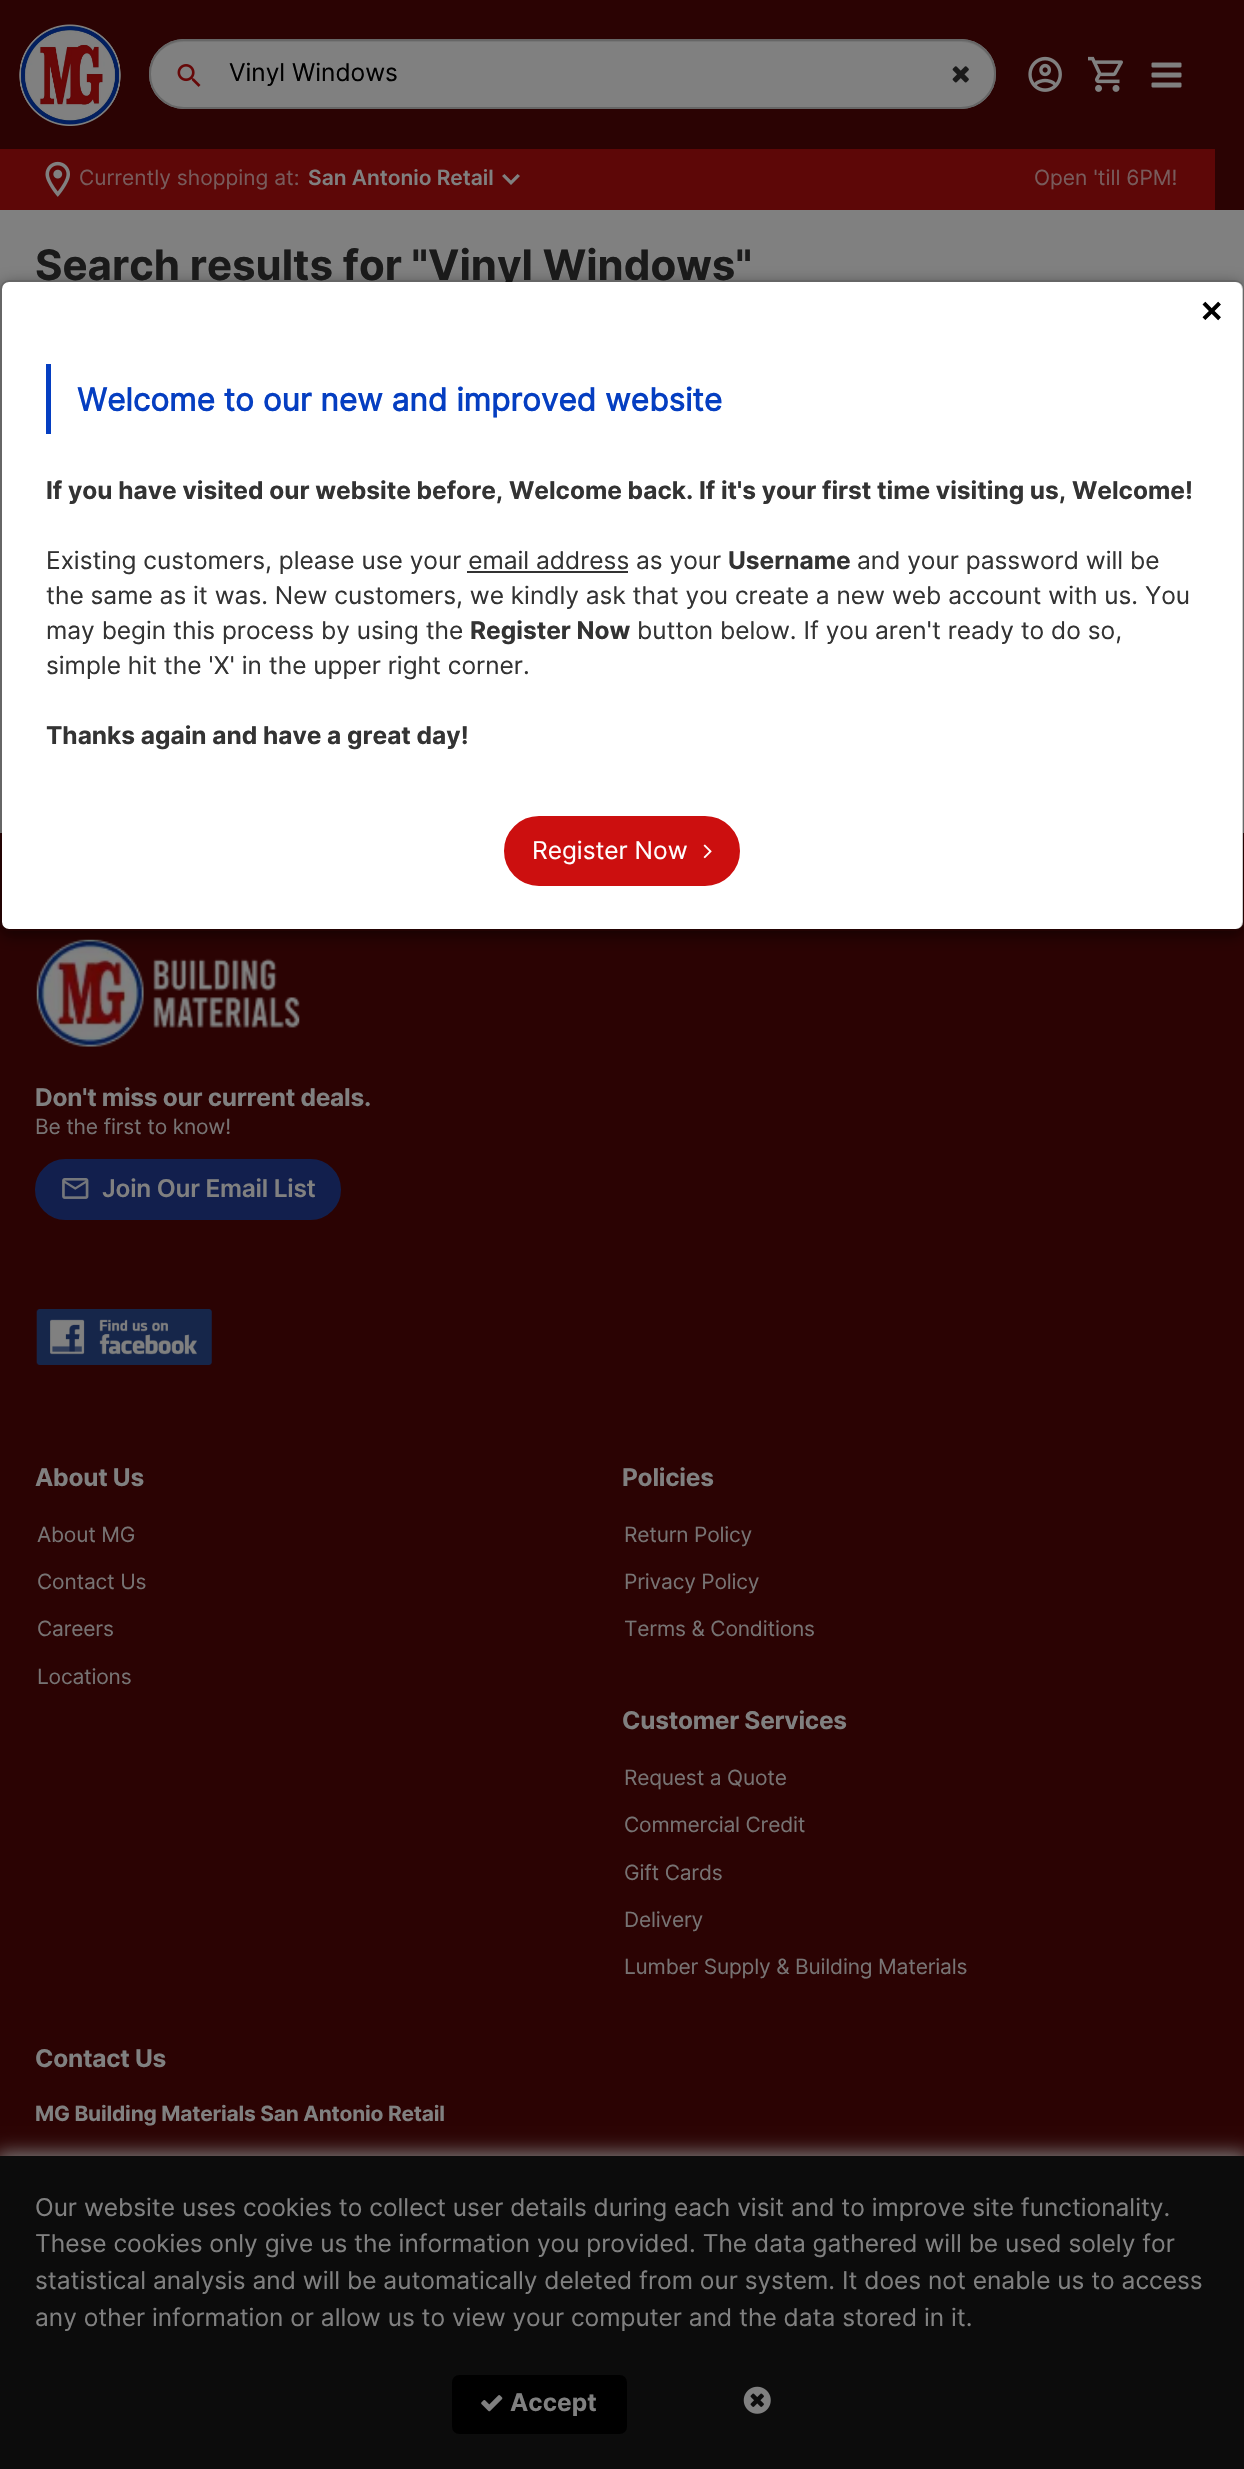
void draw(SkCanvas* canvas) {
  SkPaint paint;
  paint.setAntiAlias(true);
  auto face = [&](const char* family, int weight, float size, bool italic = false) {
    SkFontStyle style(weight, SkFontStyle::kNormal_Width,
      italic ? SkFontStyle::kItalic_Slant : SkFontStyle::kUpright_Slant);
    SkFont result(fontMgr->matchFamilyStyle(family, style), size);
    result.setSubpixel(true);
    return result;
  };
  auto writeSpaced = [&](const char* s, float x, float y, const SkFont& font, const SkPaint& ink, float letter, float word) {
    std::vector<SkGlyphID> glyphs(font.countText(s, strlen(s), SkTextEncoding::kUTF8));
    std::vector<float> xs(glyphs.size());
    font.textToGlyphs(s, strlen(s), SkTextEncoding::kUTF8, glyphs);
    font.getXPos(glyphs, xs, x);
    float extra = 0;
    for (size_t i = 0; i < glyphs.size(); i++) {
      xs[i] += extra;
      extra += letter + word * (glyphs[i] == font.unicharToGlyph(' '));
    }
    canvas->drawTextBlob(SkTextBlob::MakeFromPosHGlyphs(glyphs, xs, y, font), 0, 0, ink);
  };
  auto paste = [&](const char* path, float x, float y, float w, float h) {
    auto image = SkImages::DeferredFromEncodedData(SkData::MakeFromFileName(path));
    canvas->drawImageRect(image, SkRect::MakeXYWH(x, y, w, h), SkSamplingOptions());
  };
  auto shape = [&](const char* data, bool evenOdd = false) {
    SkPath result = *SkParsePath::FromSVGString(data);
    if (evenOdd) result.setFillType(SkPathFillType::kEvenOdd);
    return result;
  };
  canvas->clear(0xff808080);
  paint.setColor(0xff2b0303);
  canvas->drawRect(SkRect::MakeXYWH(0, 0, 1244, 210), paint);
  paste("img/1.png", 19, 24, 102, 102);
  paint.setColor(0xff808080);
  canvas->drawRoundRect(SkRect::MakeXYWH(149, 39, 847, 70), 35, 35, paint);
  paint.setColor(0xff767676);
  canvas->drawPath(shape("M184 42H961C979 42 994 57 994 74C994 55 979 40 960 40H184C171 40 160 48 154 59C160 49 171 42 184 42Z"), paint);
  paint.setStroke(true);
  paint.setStrokeWidth(2);
  paint.setColor(0xff666666);
  canvas->drawRoundRect(SkRect::MakeXYWH(150, 40, 845, 68), 34, 34, paint);
  paste("img/2.png", 177, 64, 24, 23);
  paste("img/3.png", 952, 66, 17, 17);
  paste("img/4.png", 1028, 56, 34, 36);
  paste("img/5.png", 1088, 56, 35, 36);
  paint.setStroke(false);
  paint.setColor(0xff5d0707);
  canvas->drawRect(SkRect::MakeXYWH(0, 149, 1215, 61), paint);
  paste("img/6.png", 45, 161, 25, 36);
  paint.setColor(0xff808080);
  canvas->drawPath(shape("M504.5 174L511 180.5L517.5 174L520 176L511 185L502 176Z"), paint);
  paste("img/7.png", 1151, 62, 31, 26);
  paint.setColor(0xff2b0303);
  canvas->drawRect(SkRect::MakeXYWH(0, 833, 1244, 1323), paint);
  paste("img/9.png", 36, 939, 264, 108);
  canvas->save();
  canvas->clipPath(shape("M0 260H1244V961H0ZM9 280H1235C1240 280 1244 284 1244 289V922C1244 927 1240 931 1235 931H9C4 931 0 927 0 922V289C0 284 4 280 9 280Z", true), true);
  paint.setColor(0x80000000);
  paint.setMaskFilter(SkMaskFilter::MakeBlur(kNormal_SkBlurStyle, 8));
  canvas->drawRoundRect(SkRect::MakeXYWH(0, 285, 1244, 651), 9, 9, paint);
  paint.setMaskFilter(nullptr);
  canvas->restore();
  paint.setColor(0xff121f4d);
  canvas->drawRoundRect(SkRect::MakeXYWH(36, 1160, 304, 59), 29.5f, 29.5f, paint);
  paint.setStroke(true);
  canvas->drawRoundRect(SkRect::MakeXYWH(36, 1160, 304, 59), 29.5f, 29.5f, paint);
  paste("img/10.png", 62, 1178, 27, 21);
  paste("img/11.png", 36, 1309, 176, 56);
  paint.setStroke(false);
  paint.setColor(0xff808080);
  paint.setMaskFilter(SkMaskFilter::MakeBlur(kNormal_SkBlurStyle, 9));
  canvas->drawRect(SkRect::MakeXYWH(-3, 2153, 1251, 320), paint);
  paint.setMaskFilter(nullptr);
  paint.setColor(0xff0c0c0c);
  canvas->drawRect(SkRect::MakeXYWH(0, 2156, 1244, 313), paint);
  paint.setColor(0xff000000);
  canvas->drawRoundRect(SkRect::MakeXYWH(453, 2376, 173, 57), 6, 6, paint);
  paint.setStroke(true);
  canvas->drawRoundRect(SkRect::MakeXYWH(453, 2376, 173, 57), 6, 6, paint);
  paste("img/12.png", 481, 2395, 22, 17);
  paste("img/13.png", 743, 2386, 28, 28);
  auto f0 = face("Inter", 400, 24.5f);
  paint.setStroke(false);
  canvas->drawString("Vinyl Windows", 229, 81, f0, paint);
  auto f1 = face("Inter", 400, 21);
  paint.setColor(0xff785b5b);
  canvas->drawString("Currently shopping at:", 79, 185, f1, paint);
  auto f2 = face("Inter", 600, 21);
  paint.setColor(0xff808080);
  canvas->drawString("San Antonio Retail", 308, 185, f2, paint);
  paint.setColor(0xff785b5b);
  canvas->drawString("Open 'till 6PM!", 1034, 185, f1, paint);
  auto f3 = face("Inter", 700, 42);
  paint.setColor(0xff1a1a1a);
  canvas->drawString("Search results for \"Vinyl Windows\"", 35, 280, f3, paint);
  paint.setColor(0xffffffff);
  canvas->drawRoundRect(SkRect::MakeXYWH(2, 282, 1241, 647), 7, 7, paint);
  paint.setStroke(true);
  paint.setColor(0x33000000);
  canvas->drawRoundRect(SkRect::MakeXYWH(1, 281, 1242, 649), 8, 8, paint);
  auto f4 = face("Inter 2", 700, 37);
  paint.setStroke(false);
  paint.setColor(0xff000000);
  canvas->drawString("×", 1199, 322, f4, paint);
  paint.setColor(0xff053ec1);
  canvas->drawRect(SkRect::MakeXYWH(46, 364, 5, 70), paint);
  auto f5 = face("Inter 2", 700, 31.5f);
  canvas->drawString("Welcome to our new and improved website", 77, 411, f5, paint);
  auto f6 = face("Inter", 700, 24.5f);
  paint.setColor(0xff333333);
  canvas->drawString("If you have visited our website before, Welcome back. If it's your first time visiting us, Welcome!", 46, 499, f6, paint);
  canvas->drawString("Existing customers, please use your email address as your", 46, 569, f0, paint);
  canvas->drawString("Username", 728, 569, f6, paint);
  canvas->drawString("and your password will be", 857, 569, f0, paint);
  canvas->drawRect(SkRect::MakeXYWH(467, 571, 161, 2), paint);
  canvas->drawString("the same as it was. New customers, we kindly ask that you create a new web account with us. You", 46, 604, f0, paint);
  canvas->drawString("may begin this process by using the", 46, 639, f0, paint);
  canvas->drawString("Register Now", 470, 639, f6, paint);
  canvas->drawString("button below. If you aren't ready to do so,", 637, 639, f0, paint);
  canvas->drawString("simple hit the 'X' in the upper right corner.", 46, 674, f0, paint);
  canvas->drawString("Thanks again and have a great day!", 46, 744, f6, paint);
  paint.setColor(0xffcc0f0f);
  canvas->drawRoundRect(SkRect::MakeXYWH(505, 817, 234, 68), 34, 34, paint);
  paint.setStroke(true);
  canvas->drawRoundRect(SkRect::MakeXYWH(505, 817, 234, 68), 34, 34, paint);
  paint.setStroke(false);
  paint.setColor(0xffffffff);
  canvas->drawString("Register Now", 532, 859, f0, paint);
  paste("img/8.png", 703, 844, 9, 15);
  paint.setColor(0xff808080);
  writeSpaced("Don't miss our current deals.", 35, 1106, f6, paint, -0.25f, 0);
  paint.setColor(0xff777373);
  writeSpaced("Be the first to know!", 35, 1134, f1, paint, -0.2f, 0);
  auto f7 = face("Inter", 600, 24.5f);
  paint.setColor(0xff808080);
  writeSpaced("Join Our Email List", 102, 1197, f7, paint, -0.25f, 0);
  writeSpaced("About Us", 35, 1486, f6, paint, -0.25f, 0);
  paint.setColor(0xff777373);
  {
    const struct { const char* s; float x, y; } items[] = {
      {"About MG", 37, 1542},
      {"Contact Us", 37, 1589},
      {"Careers", 37, 1636},
      {"Locations", 37, 1684},
    };
    for (auto [s, x, y] : items) {
      writeSpaced(s, x, y, f1, paint, -0.2f, 0);
    }
  }
  paint.setColor(0xff808080);
  writeSpaced("Policies", 622, 1486, f6, paint, -0.25f, 0);
  paint.setColor(0xff777373);
  {
    const struct { const char* s; float x, y; } items[] = {
      {"Return Policy", 624, 1542},
      {"Privacy Policy", 624, 1589},
      {"Terms & Conditions", 624, 1636},
    };
    for (auto [s, x, y] : items) {
      writeSpaced(s, x, y, f1, paint, -0.2f, 0);
    }
  }
  paint.setColor(0xff808080);
  writeSpaced("Customer Services", 622, 1729, f6, paint, -0.25f, 0);
  paint.setColor(0xff777373);
  {
    const struct { const char* s; float x, y; } items[] = {
      {"Request a Quote", 624, 1785},
      {"Commercial Credit", 624, 1832},
      {"Gift Cards", 624, 1880},
      {"Delivery", 624, 1927},
      {"Lumber Supply & Building Materials", 624, 1974},
    };
    for (auto [s, x, y] : items) {
      writeSpaced(s, x, y, f1, paint, -0.2f, 0);
    }
  }
  paint.setColor(0xff808080);
  writeSpaced("Contact Us", 35, 2067, f6, paint, -0.25f, 0);
  auto f8 = face("Inter", 700, 21);
  writeSpaced("MG Building Materials San Antonio Retail", 35, 2121, f8, paint, -0.2f, 0);
  {
    const struct { const char* s; float x, y; } items[] = {
      {"Our website uses cookies to collect user details during each visit and to improve site functionality.", 35, 2216},
      {"These cookies only give us the information you provided. The data gathered will be used solely for", 35, 2252},
      {"statistical analysis and will be automatically deleted from our system. It does not enable us to access", 35, 2289},
      {"any other information or allow us to view your computer and the data stored in it.", 35, 2326},
    };
    for (auto [s, x, y] : items) {
      canvas->drawString(s, x, y, f0, paint);
    }
  }
  canvas->drawString("Accept", 510, 2411, f6, paint);
}
